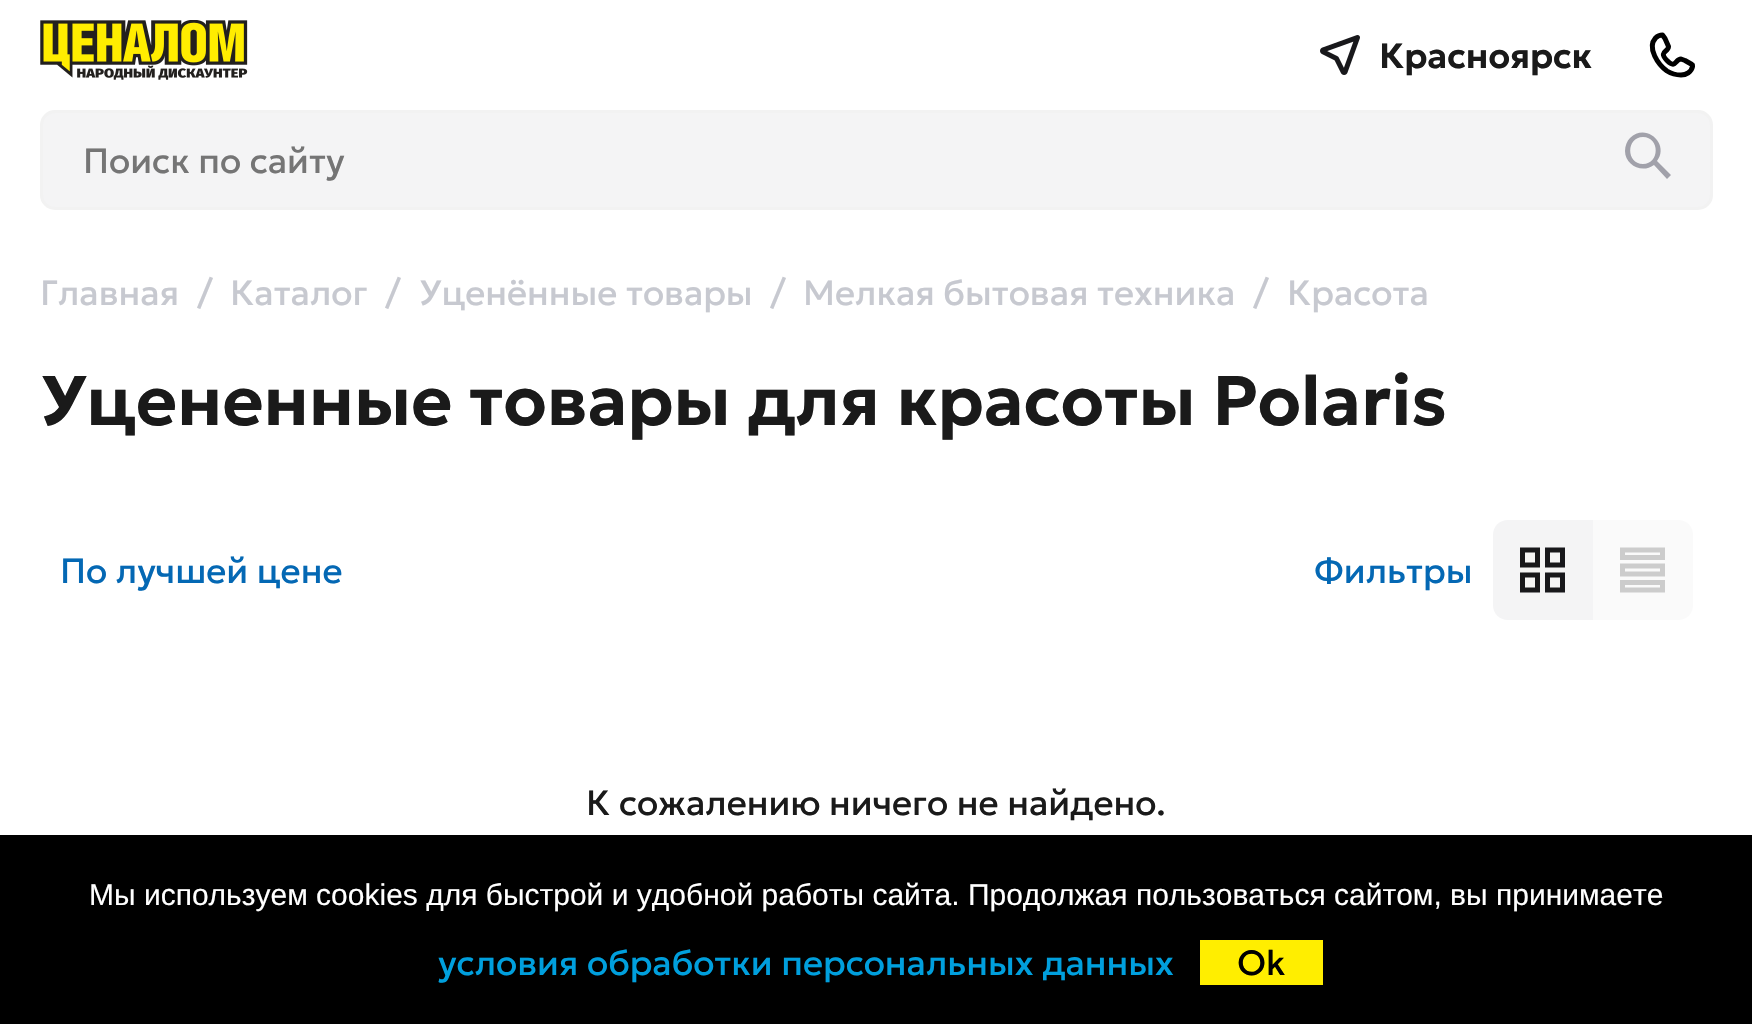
void draw(SkCanvas* canvas) {
  SkPaint paint;
  paint.setAntiAlias(true);
  auto face = [&](const char* family, int weight, float size, bool italic = false) {
    SkFontStyle style(weight, SkFontStyle::kNormal_Width,
      italic ? SkFontStyle::kItalic_Slant : SkFontStyle::kUpright_Slant);
    SkFont result(fontMgr->matchFamilyStyle(family, style), size);
    result.setSubpixel(true);
    return result;
  };
  auto paste = [&](const char* path, float x, float y, float w, float h) {
    auto image = SkImages::DeferredFromEncodedData(SkData::MakeFromFileName(path));
    canvas->drawImageRect(image, SkRect::MakeXYWH(x, y, w, h), SkSamplingOptions());
  };
  auto shape = [&](const char* data, bool evenOdd = false) {
    SkPath result = *SkParsePath::FromSVGString(data);
    if (evenOdd) result.setFillType(SkPathFillType::kEvenOdd);
    return result;
  };
  canvas->clear(0xffffffff);
  paste("img/1.png", 40, 20, 208, 60);
  paste("img/2.png", 1320, 35, 40, 40);
  paint.setStroke(true);
  paint.setStrokeWidth(5);
  paint.setStrokeCap(SkPaint::kRound_Cap);
  paint.setStrokeJoin(SkPaint::kRound_Join);
  paint.setColor(0xff000000);
  canvas->drawPath(shape("M1662.5 35L1665 38.5L1668.5 46.5C1668.5 52.5 1658 51 1667 60.5C1676 69.5 1675 59 1681 59L1685 60.5L1692 64.5C1693 65 1692.5 65.5 1692.5 66.5C1691.5 72 1686 75 1681 75C1676 75 1671 73.5 1667 71C1658.5 65 1646.5 48 1655.5 38C1657.5 36 1660 35 1662.5 35Z"), paint);
  paint.setStroke(false);
  paint.setColor(0xfff4f4f5);
  canvas->drawRoundRect(SkRect::MakeXYWH(41.5f, 111.5f, 1670, 97), 13.5f, 13.5f, paint);
  paint.setStroke(true);
  paint.setStrokeWidth(3);
  paint.setStrokeCap(SkPaint::kButt_Cap);
  paint.setStrokeJoin(SkPaint::kMiter_Join);
  paint.setColor(0xfff2f2f2);
  canvas->drawRoundRect(SkRect::MakeXYWH(41.5f, 111.5f, 1670, 97), 13.5f, 13.5f, paint);
  paint.setStroke(false);
  paint.setColor(0xffa1a1aa);
  canvas->drawPath(shape("M1643 137C1626 137 1626 164 1643 164C1660 164 1660 137 1643 137ZM1625 151C1625 146 1627 141 1630 138C1646 122 1670 144 1657 161L1671 175L1667 179L1654 165C1642 174 1625 165 1625 151Z", true), paint);
  paint.setColor(0xfff4f4f5);
  canvas->drawPath(shape("M1508 520H1593V620H1508C1499.5 620 1493 613.5 1493 605V535C1493 526.5 1499.5 520 1508 520Z"), paint);
  paste("img/3.png", 1520, 547, 45, 46);
  paint.setColor(0xfffafafa);
  canvas->drawPath(shape("M1593 520H1678C1686.5 520 1693 526.5 1693 535V605C1693 613.5 1686.5 620 1678 620H1593Z"), paint);
  paint.setStroke(true);
  paint.setStrokeWidth(5);
  paint.setStrokeCap(SkPaint::kSquare_Cap);
  paint.setColor(0xffcccccc);
  canvas->drawPath(shape("M1622.5 566H1662.5V574H1622.5ZM1622.5 582.5H1662.5V590H1622.5ZM1662.5 550V557.5H1622.5V550Z"), paint);
  paint.setStroke(false);
  paint.setColor(0xff000000);
  canvas->drawRect(SkRect::MakeXYWH(0, 835, 1752, 189), paint);
  paint.setColor(0xffffee00);
  canvas->drawRect(SkRect::MakeXYWH(1200, 940, 123, 45), paint);
  auto f0 = face("Geologica", 600, 35);
  paint.setColor(0xff1a1a1a);
  canvas->drawString("Красноярск", 1379, 68, f0, paint);
  auto f1 = face("Geologica", 400, 35);
  paint.setColor(0xff757575);
  canvas->drawString("Поиcк по сайту", 83, 173, f1, paint);
  paint.setColor(0xffc7c9d0);
  {
    const struct { const char* s; float x, y; } items[] = {
      {"Главная", 40, 305},
      {"/", 197, 305},
      {"Каталог", 230, 305},
      {"/", 385, 305},
      {"Уценённые товары", 419, 305},
      {"/", 770, 305},
      {"Мелкая бытовая техника", 803, 305},
      {"/", 1253, 305},
      {"Красота", 1287, 305},
    };
    for (auto [s, x, y] : items) {
      canvas->drawString(s, x, y, f1, paint);
    }
  }
  auto f2 = face("Geologica", 600, 70);
  paint.setColor(0xff1a1a1a);
  canvas->drawString("Уцененные товары для красоты Polaris", 40, 425, f2, paint);
  paint.setColor(0xff0468b4);
  canvas->drawString("По лучшей цене", 60, 583, f1, paint);
  canvas->drawString("Фильтры", 1314, 583, f1, paint);
  paint.setColor(0xff1a1a1a);
  canvas->drawString("К сожалению ничего не найдено.", 586, 815, f1, paint);
  auto f3 = face("Liberation Sans", 400, 30);
  paint.setColor(0xffffffff);
  canvas->drawString("Мы используем cookies для быстрой и удобной работы сайта. Продолжая пользоваться сайтом, вы принимаете", 89, 905, f3, paint);
  paint.setColor(0xff009fdd);
  canvas->drawString("условия обработки персональных данных", 438, 975, f1, paint);
  paint.setColor(0xff000000);
  canvas->drawString("Ok", 1237, 975, f1, paint);
}
